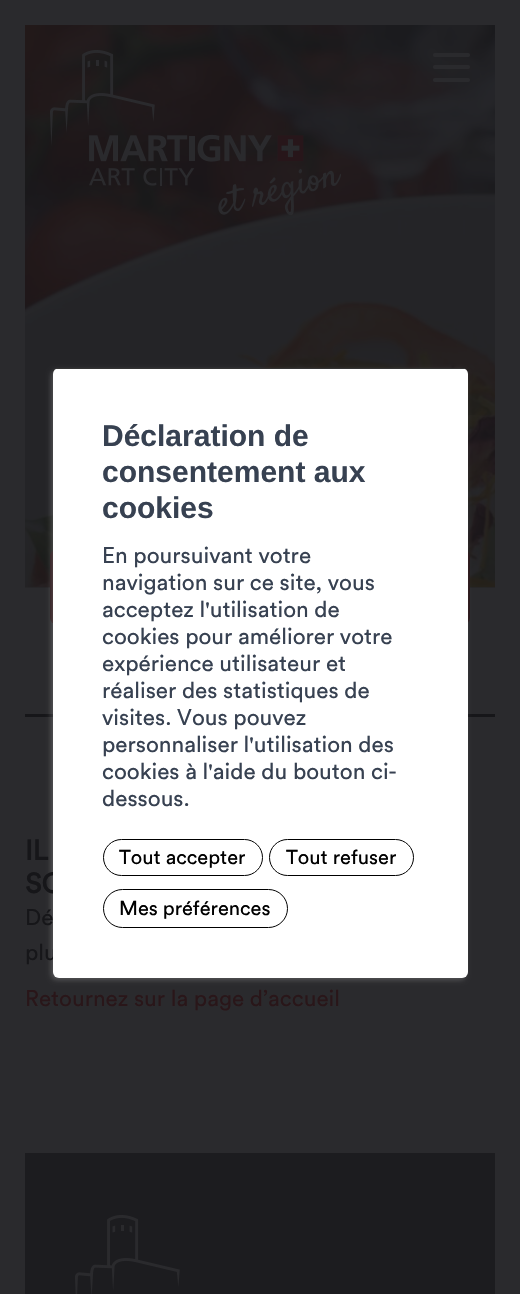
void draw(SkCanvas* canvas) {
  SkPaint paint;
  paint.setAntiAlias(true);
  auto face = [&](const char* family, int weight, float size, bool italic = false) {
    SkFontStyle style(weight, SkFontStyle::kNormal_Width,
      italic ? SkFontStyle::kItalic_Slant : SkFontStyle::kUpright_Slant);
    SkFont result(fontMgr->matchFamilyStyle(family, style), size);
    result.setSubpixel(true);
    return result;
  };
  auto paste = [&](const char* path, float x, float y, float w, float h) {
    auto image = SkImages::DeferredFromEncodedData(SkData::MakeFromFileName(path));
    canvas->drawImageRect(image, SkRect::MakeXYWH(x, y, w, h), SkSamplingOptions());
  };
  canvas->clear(0xff2a2a2d);
  paint.setColor(0xff262629);
  canvas->drawRect(SkRect::MakeXYWH(25, 587, 470, 1), paint);
  paste("img/1.png", 25, 25, 470, 563);
  paint.setColor(0xff291619);
  canvas->drawRoundRect(SkRect::MakeXYWH(50, 550, 420, 74), 6, 6, paint);
  paint.setColor(0xff161619);
  canvas->drawRect(SkRect::MakeXYWH(25, 714, 28, 3), paint);
  canvas->drawRect(SkRect::MakeXYWH(468, 714, 27, 3), paint);
  paint.setColor(0x33ffffff);
  paint.setMaskFilter(SkMaskFilter::MakeBlur(kNormal_SkBlurStyle, 2.5f));
  canvas->drawRoundRect(SkRect::MakeXYWH(51, 370, 415, 610), 6, 6, paint);
  paint.setMaskFilter(nullptr);
  paste("img/2.png", 50, 50, 291, 165);
  paint.setColor(0xff2a2a2d);
  canvas->drawRoundRect(SkRect::MakeXYWH(433, 53, 37, 4), 2, 2, paint);
  canvas->drawRoundRect(SkRect::MakeXYWH(433, 65, 37, 4), 2, 2, paint);
  canvas->drawRoundRect(SkRect::MakeXYWH(433, 78, 37, 4), 2, 2, paint);
  paint.setColor(0xff1c1c1f);
  canvas->drawRect(SkRect::MakeXYWH(25, 1153, 470, 141), paint);
  paste("img/3.png", 75, 1215, 105, 79);
  auto f0 = face("Circular", 700, 28);
  paint.setColor(0xff161619);
  canvas->drawString("IL", 25, 860, f0, paint);
  canvas->drawString("SO", 25, 893, f0, paint);
  auto f1 = face("Circular", 400, 22.5f);
  canvas->drawString("Dé", 25, 925, f1, paint);
  canvas->drawString("plu", 25, 960, f1, paint);
  paint.setColor(0xffffffff);
  canvas->drawRoundRect(SkRect::MakeXYWH(53, 368, 415, 610), 6, 6, paint);
  paint.setStroke(true);
  paint.setStrokeWidth(1);
  paint.setColor(0xff000000);
  canvas->drawRoundRect(SkRect::MakeXYWH(103.5f, 889.5f, 184, 38), 19, 19, paint);
  auto f2 = face("Circular", 400, 20);
  paint.setStroke(false);
  canvas->drawString("Mes préférences", 119, 915, f2, paint);
  paint.setStroke(true);
  canvas->drawRoundRect(SkRect::MakeXYWH(269.5f, 839.5f, 144, 36), 18, 18, paint);
  paint.setStroke(false);
  canvas->drawString("Tout refuser", 286, 864, f2, paint);
  paint.setStroke(true);
  canvas->drawRoundRect(SkRect::MakeXYWH(103.5f, 839.5f, 159, 36), 18, 18, paint);
  paint.setStroke(false);
  canvas->drawString("Tout accepter", 119, 864, f2, paint);
  paint.setColor(0xff374151);
  {
    const struct { const char* s; float x, y; } items[] = {
      {"dessous.", 102, 806},
      {"cookies à l'aide du bouton ci-", 102, 779},
      {"personnaliser l'utilisation des", 102, 752},
      {"visites. Vous pouvez", 102, 725},
      {"réaliser des statistiques de", 102, 698},
      {"expérience utilisateur et", 102, 671},
      {"cookies pour améliorer votre", 102, 644},
      {"acceptez l'utilisation de", 102, 617},
      {"navigation sur ce site, vous", 102, 590},
      {"En poursuivant votre", 102, 563},
    };
    for (auto [s, x, y] : items) {
      canvas->drawString(s, x, y, f1, paint);
    }
  }
  auto f3 = face("Liberation Sans", 700, 30);
  {
    const struct { const char* s; float x, y; } items[] = {
      {"cookies", 102, 518},
      {"consentement aux", 102, 482},
      {"Déclaration de", 102, 446},
    };
    for (auto [s, x, y] : items) {
      canvas->drawString(s, x, y, f3, paint);
    }
  }
  paint.setColor(0xff333333);
  canvas->drawRect(SkRect::MakeXYWH(56, 368, 409, 1), paint);
  paint.setColor(0xff291619);
  canvas->drawString("Retournez sur la page d’accueil", 25, 1006, f1, paint);
}
